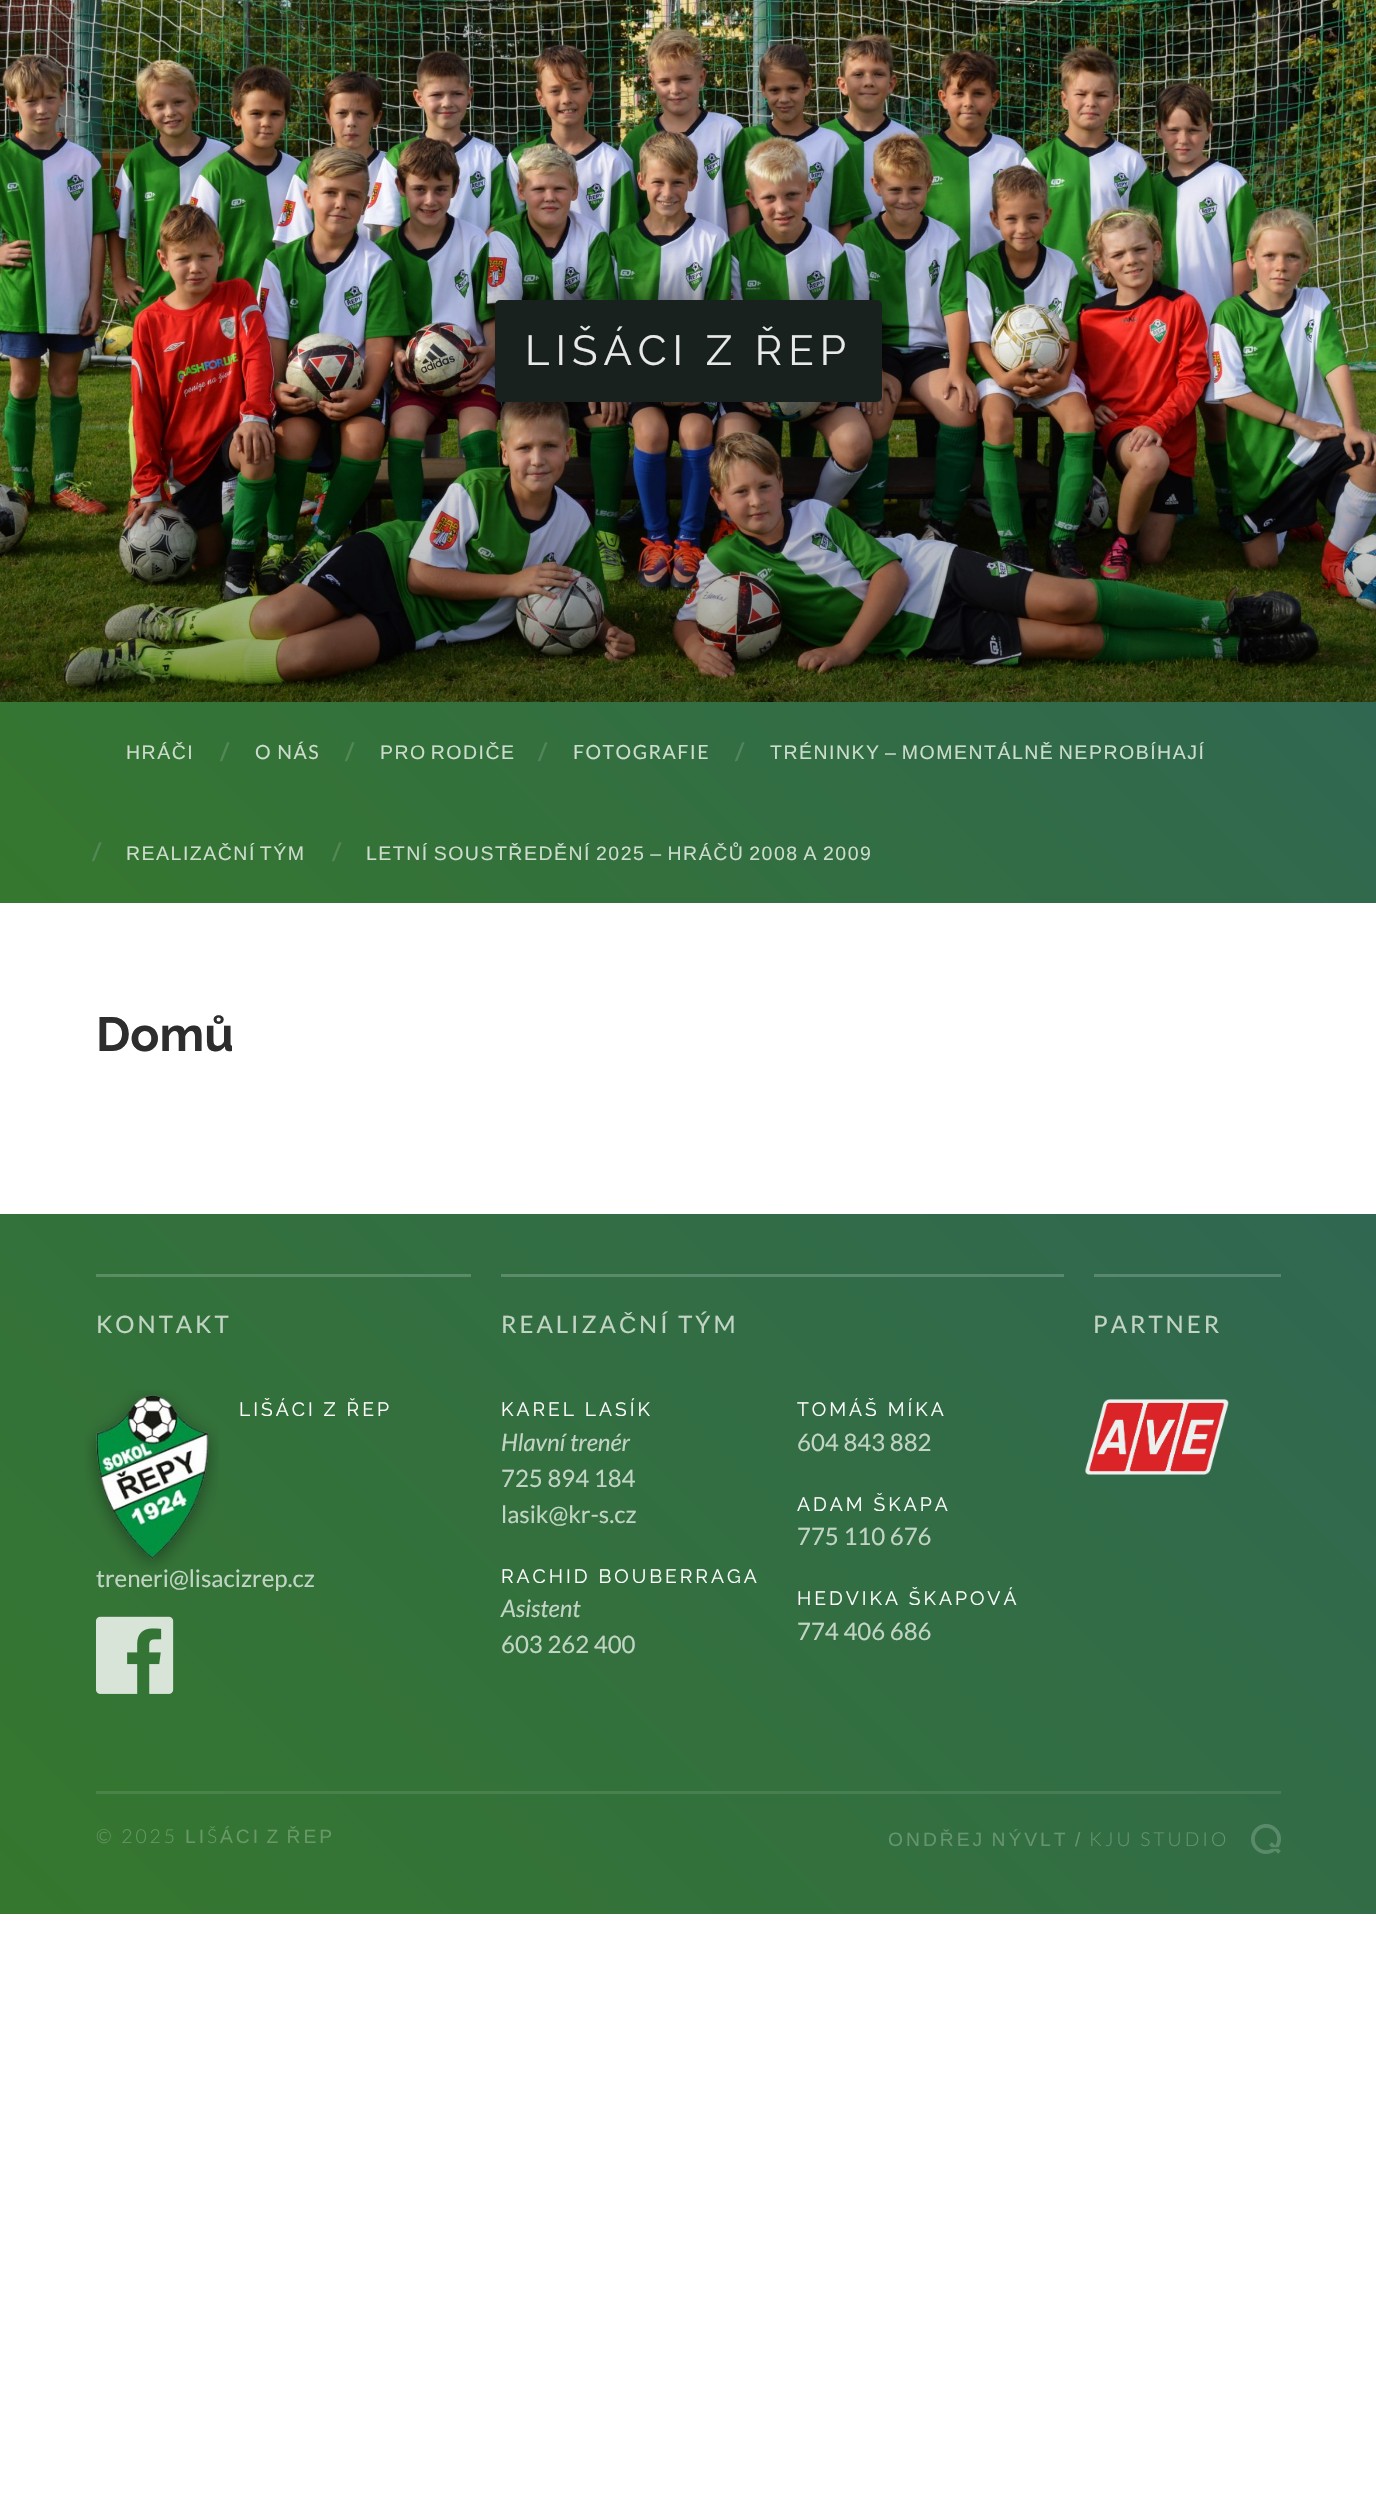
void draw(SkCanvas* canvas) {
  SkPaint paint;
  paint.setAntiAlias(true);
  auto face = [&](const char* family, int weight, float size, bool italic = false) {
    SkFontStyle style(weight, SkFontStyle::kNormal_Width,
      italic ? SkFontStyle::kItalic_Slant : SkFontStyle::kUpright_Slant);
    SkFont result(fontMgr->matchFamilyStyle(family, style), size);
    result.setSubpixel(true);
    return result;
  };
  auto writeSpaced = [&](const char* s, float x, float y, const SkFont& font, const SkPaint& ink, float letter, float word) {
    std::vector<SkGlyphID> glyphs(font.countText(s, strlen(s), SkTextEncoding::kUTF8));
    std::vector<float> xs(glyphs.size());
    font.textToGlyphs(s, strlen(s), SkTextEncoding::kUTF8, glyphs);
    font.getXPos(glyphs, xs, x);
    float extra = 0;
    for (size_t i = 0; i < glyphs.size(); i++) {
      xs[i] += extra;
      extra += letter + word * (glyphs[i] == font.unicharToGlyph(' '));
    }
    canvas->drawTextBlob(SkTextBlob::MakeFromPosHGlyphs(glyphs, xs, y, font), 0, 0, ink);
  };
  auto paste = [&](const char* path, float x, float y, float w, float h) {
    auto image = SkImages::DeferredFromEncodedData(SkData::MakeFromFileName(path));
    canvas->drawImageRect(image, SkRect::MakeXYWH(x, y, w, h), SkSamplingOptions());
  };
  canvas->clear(0xffffffff);
  paste("img/1.png", 0, 0, 1376, 702);
  paint.setColor(0x80000000);
  paint.setMaskFilter(SkMaskFilter::MakeBlur(kNormal_SkBlurStyle, 19.5f));
  canvas->drawRoundRect(SkRect::MakeXYWH(488, 290, 402, 117), 12, 12, paint);
  paint.setMaskFilter(nullptr);
  paint.setColor(0xff19211e);
  canvas->drawRoundRect(SkRect::MakeXYWH(495, 300, 387, 102), 5, 5, paint);
  {
    const SkColor colors[] = {0xff35772e, 0xff306752};
    const float stops[] = {0, 1};
    const SkPoint ends[] = {{294, 1197}, {1083, 408}};
    paint.setShader(SkGradientShader::MakeLinear(ends, colors, stops, 2, SkTileMode::kClamp));
    paint.setAlpha(255);
  }
  canvas->drawRect(SkRect::MakeXYWH(0, 702, 1376, 201), paint);
  {
    const SkColor colors[] = {0xff35772e, 0xff306752};
    const float stops[] = {0, 1};
    const SkPoint ends[] = {{169, 2083}, {1208, 1044}};
    paint.setShader(SkGradientShader::MakeLinear(ends, colors, stops, 2, SkTileMode::kClamp));
    paint.setAlpha(255);
  }
  canvas->drawRect(SkRect::MakeXYWH(0, 1214, 1376, 700), paint);
  {
    const SkColor colors[] = {0xff5d9258, 0xff598575};
    const float stops[] = {0, 1};
    const SkPoint ends[] = {{169, 2083}, {1208, 1044}};
    paint.setShader(SkGradientShader::MakeLinear(ends, colors, stops, 2, SkTileMode::kClamp));
    paint.setAlpha(255);
  }
  canvas->drawRect(SkRect::MakeXYWH(1094, 1274, 187, 3), paint);
  canvas->drawRect(SkRect::MakeXYWH(501, 1274, 563, 3), paint);
  canvas->drawRect(SkRect::MakeXYWH(96, 1274, 375, 3), paint);
  {
    const SkColor colors[] = {0xff498543, 0xff457663};
    const float stops[] = {0, 1};
    const SkPoint ends[] = {{169, 2083}, {1208, 1044}};
    paint.setShader(SkGradientShader::MakeLinear(ends, colors, stops, 2, SkTileMode::kClamp));
    paint.setAlpha(255);
  }
  canvas->drawRect(SkRect::MakeXYWH(96, 1791, 1185, 3), paint);
  paste("img/3.png", 96, 1616, 78, 78);
  paste("img/4.png", 1085, 1399, 144, 76);
  paste("img/5.png", 1251, 1824, 30, 30);
  auto f0 = face("Raleway", 400, 42);
  paint.setShader(nullptr);
  paint.setColor(0xffe8e9e9);
  writeSpaced("LIŠÁCI Z ŘEP", 525, 365, f0, paint, 6, 0);
  auto f1 = face("Liberation Sans", 400, 19.5f);
  paint.setColor(0xffccdccd);
  writeSpaced("HRÁČI", 126, 759, f1, paint, 1.5f, 0);
  auto f2 = face("Lato", 700, 24);
  paint.setColor(0xff528855);
  canvas->drawString("/", 220, 760, f2, paint);
  auto f3 = face("Lato", 400, 19.5f);
  paint.setColor(0xffccdccd);
  writeSpaced("O NÁS", 255, 759, f3, paint, 1.5f, 0);
  paint.setColor(0xff528855);
  canvas->drawString("/", 345, 760, f2, paint);
  paint.setColor(0xffccdccd);
  writeSpaced("PRO RODIČE", 380, 759, f1, paint, 1.5f, -3);
  paint.setColor(0xff52855b);
  canvas->drawString("/", 538, 760, f2, paint);
  paint.setColor(0xffccdccd);
  writeSpaced("FOTOGRAFIE", 573, 759, f3, paint, 1.5f, 0);
  paint.setColor(0xff52855b);
  canvas->drawString("/", 735, 760, f2, paint);
  paint.setColor(0xffccdccd);
  writeSpaced("TRÉNINKY – MOMENTÁLNĚ NEPROBÍHAJÍ", 770, 759, f1, paint, 1.5f, -2.5f);
  paint.setColor(0xff528855);
  canvas->drawString("/", 92, 860, f2, paint);
  paint.setColor(0xffccdccd);
  writeSpaced("REALIZAČNÍ TÝM", 126, 860, f1, paint, 1.5f, -3);
  paint.setColor(0xff528855);
  canvas->drawString("/", 332, 860, f2, paint);
  paint.setColor(0xffccdccd);
  writeSpaced("LETNÍ SOUSTŘEDĚNÍ 2025 – HRÁČŮ 2008 A 2009", 366, 860, f1, paint, 1.5f, -2);
  auto f4 = face("Raleway", 700, 48);
  paint.setColor(0xff2d2d2d);
  canvas->drawString("Domů", 96, 1051, f4, paint);
  auto f5 = face("Lato", 400, 24);
  paint.setColor(0xffc2d4c4);
  writeSpaced("KONTAKT", 96, 1333, f5, paint, 3, 0);
  auto f6 = face("Raleway", 400, 19.25f);
  paint.setColor(0xffffffff);
  writeSpaced("LIŠÁCI Z ŘEP", 239, 1416, f6, paint, 3, 0);
  paint.setColor(0xffc2d4c4);
  canvas->drawString("treneri@lisacizrep.cz", 96, 1587, f5, paint);
  paste("img/2.png", 85, 1390, 134, 181);
  writeSpaced("REALIZA", 501, 1333, f5, paint, 3, 0);
  auto f7 = face("Liberation Sans", 400, 24);
  writeSpaced("Č", 619, 1333, f7, paint, 3, 0);
  writeSpaced("NÍ TÝM", 639, 1333, f5, paint, 3, 0);
  paint.setColor(0xffffffff);
  writeSpaced("KAREL LASÍK", 501, 1416, f6, paint, 3, 0);
  auto f8 = face("Lato", 400, 24, true);
  paint.setColor(0xffc2d4c4);
  canvas->drawString("Hlavní trenér", 501, 1451, f8, paint);
  canvas->drawString("725 894 184", 501, 1487, f5, paint);
  canvas->drawString("lasik@kr-s.cz", 501, 1523, f5, paint);
  paint.setColor(0xffffffff);
  writeSpaced("RACHID BOUBERRAGA", 501, 1583, f6, paint, 3, 0);
  paint.setColor(0xffc2d4c4);
  canvas->drawString("Asistent", 501, 1617, f8, paint);
  canvas->drawString("603 262 400", 501, 1653, f5, paint);
  paint.setColor(0xffffffff);
  writeSpaced("TOMÁŠ MÍKA", 797, 1416, f6, paint, 3, 0);
  paint.setColor(0xffc2d4c4);
  canvas->drawString("604 843 882", 797, 1451, f5, paint);
  paint.setColor(0xffffffff);
  writeSpaced("ADAM ŠKAPA", 797, 1511, f6, paint, 3, 0);
  paint.setColor(0xffc2d4c4);
  canvas->drawString("775 110 676", 797, 1545, f5, paint);
  paint.setColor(0xffffffff);
  writeSpaced("HEDVIKA ŠKAPOVÁ", 797, 1605, f6, paint, 3, 0);
  paint.setColor(0xffc2d4c4);
  canvas->drawString("774 406 686", 797, 1640, f5, paint);
  writeSpaced("PARTNER", 1093, 1333, f5, paint, 3, 0);
  auto f9 = face("Lato", 300, 19.25f);
  paint.setColor(0xff679865);
  writeSpaced("© 2025", 96, 1843, f9, paint, 3, 0);
  auto f10 = face("Liberation Sans", 400, 19.25f);
  writeSpaced("LI", 185, 1843, f10, paint, 3, 0);
  writeSpaced("Š", 207, 1843, f9, paint, 3, 0);
  writeSpaced("ÁCI Z ŘEP", 220, 1843, f10, paint, 3, -3);
  paint.setColor(0xff669370);
  writeSpaced("ONDŘEJ NÝVLT /", 888, 1846, f10, paint, 3, -2);
  writeSpaced("KJU STUDIO", 1089, 1846, f9, paint, 3, 0);
}
